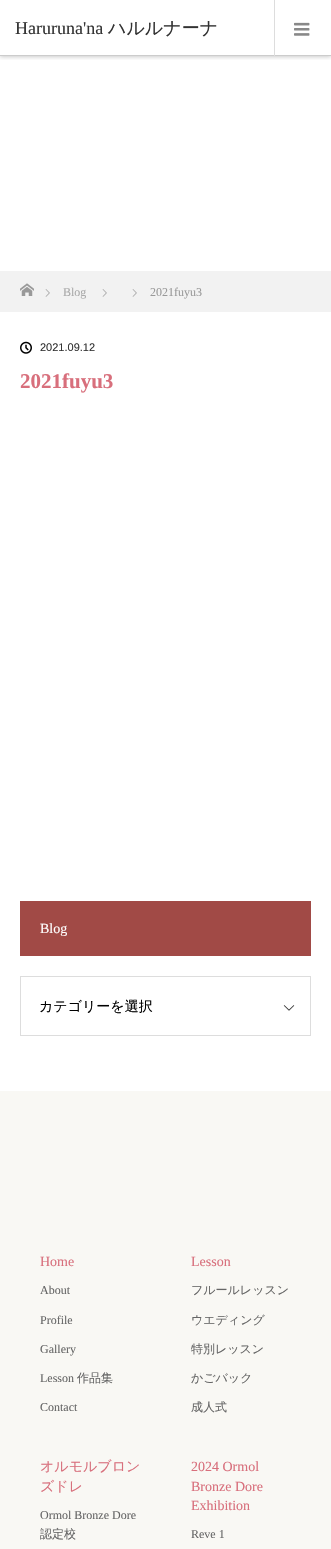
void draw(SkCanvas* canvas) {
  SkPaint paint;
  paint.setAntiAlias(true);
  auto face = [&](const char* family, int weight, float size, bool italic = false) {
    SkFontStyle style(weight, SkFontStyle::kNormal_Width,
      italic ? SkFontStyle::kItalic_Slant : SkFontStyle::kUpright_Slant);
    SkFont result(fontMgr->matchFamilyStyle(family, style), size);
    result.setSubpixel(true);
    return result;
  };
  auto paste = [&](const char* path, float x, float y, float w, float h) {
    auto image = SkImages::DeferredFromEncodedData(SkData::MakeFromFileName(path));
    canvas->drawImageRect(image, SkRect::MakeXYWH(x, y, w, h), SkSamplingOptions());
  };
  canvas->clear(0xffffffff);
  canvas->save();
  canvas->clipRect(SkRect::MakeXYWH(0, 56, 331, 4));
  paint.setColor(0x33000000);
  paint.setMaskFilter(SkMaskFilter::MakeBlur(kNormal_SkBlurStyle, 2));
  canvas->drawRect(SkRect::MakeXYWH(0, 1, 331, 56), paint);
  paint.setMaskFilter(nullptr);
  canvas->restore();
  paint.setColor(0xffcccccc);
  canvas->drawRect(SkRect::MakeXYWH(0, 55, 331, 1), paint);
  paint.setColor(0xffdddddd);
  canvas->drawRect(SkRect::MakeXYWH(274, 0, 1, 56), paint);
  paste("img/1.png", 294, 22, 16, 14);
  paint.setColor(0xfff2f2f2);
  canvas->drawRect(SkRect::MakeXYWH(0, 271, 331, 41), paint);
  paste("img/2.png", 20, 283, 14, 13);
  paste("img/3.png", 45, 289, 5, 8);
  paste("img/3.png", 102, 289, 5, 8);
  paste("img/3.png", 132, 289, 5, 8);
  paste("img/4.png", 20, 341, 12, 13);
  paint.setColor(0xffa14a46);
  canvas->drawRect(SkRect::MakeXYWH(20, 901, 291, 55), paint);
  paint.setStroke(true);
  paint.setStrokeWidth(1);
  paint.setColor(0xffdddddd);
  canvas->drawRect(SkRect::MakeXYWH(20.5f, 976.5f, 290, 59), paint);
  paste("img/5.png", 283, 1005, 12, 6);
  paint.setStroke(false);
  paint.setColor(0xfff9f8f4);
  canvas->drawRect(SkRect::MakeXYWH(0, 1091, 331, 458), paint);
  auto f0 = face("Liberation Serif", 400, 18);
  paint.setColor(0xff333333);
  canvas->drawString("Haruruna'na", 15, 34, f0, paint);
  auto f1 = face("WenQuanYi Zen Hei", 500, 18);
  canvas->drawString("ハルルナーナ", 108, 34, f1, paint);
  auto f2 = face("Liberation Serif", 400, 12);
  paint.setColor(0xffaaaaaa);
  canvas->drawString("Blog", 63, 296, f2, paint);
  paint.setColor(0xff999999);
  canvas->drawString("2021fuyu3", 150, 296, f2, paint);
  auto f3 = face("Liberation Sans", 400, 11);
  paint.setColor(0xff333333);
  canvas->drawString("2021.09.12", 40, 351, f3, paint);
  auto f4 = face("Liberation Serif", 700, 21);
  paint.setColor(0xffd86f7c);
  canvas->drawString("2021fuyu3", 20, 388, f4, paint);
  auto f5 = face("Liberation Serif", 400, 14);
  paint.setColor(0xffffffff);
  canvas->drawString("Blog", 40, 933, f5, paint);
  auto f6 = face("WenQuanYi Zen Hei", 500, 14);
  paint.setColor(0xff000000);
  canvas->drawString("カテゴリーを選択", 39, 1011, f6, paint);
  paint.setColor(0xffd86f7c);
  canvas->drawString("Home", 40, 1266, f5, paint);
  paint.setColor(0xff666666);
  {
    const struct { const char* s; float x, y; } items[] = {
      {"About", 40, 1294},
      {"Profile", 40, 1324},
      {"Gallery", 40, 1353},
      {"Lesson", 40, 1382},
    };
    for (auto [s, x, y] : items) {
      canvas->drawString(s, x, y, f2, paint);
    }
  }
  auto f7 = face("WenQuanYi Zen Hei", 500, 12);
  canvas->drawString("作品集", 77, 1382, f7, paint);
  canvas->drawString("Contact", 40, 1411, f2, paint);
  paint.setColor(0xffd86f7c);
  canvas->drawString("Lesson", 191, 1266, f5, paint);
  paint.setColor(0xff666666);
  {
    const struct { const char* s; float x, y; } items[] = {
      {"フルールレッスン", 191, 1294},
      {"ウエディング", 191, 1324},
      {"特別レッスン", 191, 1353},
      {"かごバック", 191, 1382},
      {"成人式", 191, 1411},
    };
    for (auto [s, x, y] : items) {
      canvas->drawString(s, x, y, f7, paint);
    }
  }
  paint.setColor(0xffd86f7c);
  canvas->drawString("オルモルブロン", 40, 1471, f6, paint);
  canvas->drawString("ズドレ", 40, 1491, f6, paint);
  paint.setColor(0xff666666);
  canvas->drawString("Ormol Bronze Dore", 40, 1519, f2, paint);
  canvas->drawString("認定校", 40, 1538, f7, paint);
  paint.setColor(0xffd86f7c);
  {
    const struct { const char* s; float x, y; } items[] = {
      {"2024 Ormol", 191, 1471},
      {"Bronze Dore", 191, 1491},
      {"Exhibition", 191, 1510},
    };
    for (auto [s, x, y] : items) {
      canvas->drawString(s, x, y, f5, paint);
    }
  }
  paint.setColor(0xff666666);
  canvas->drawString("Reve 1", 191, 1538, f2, paint);
}
